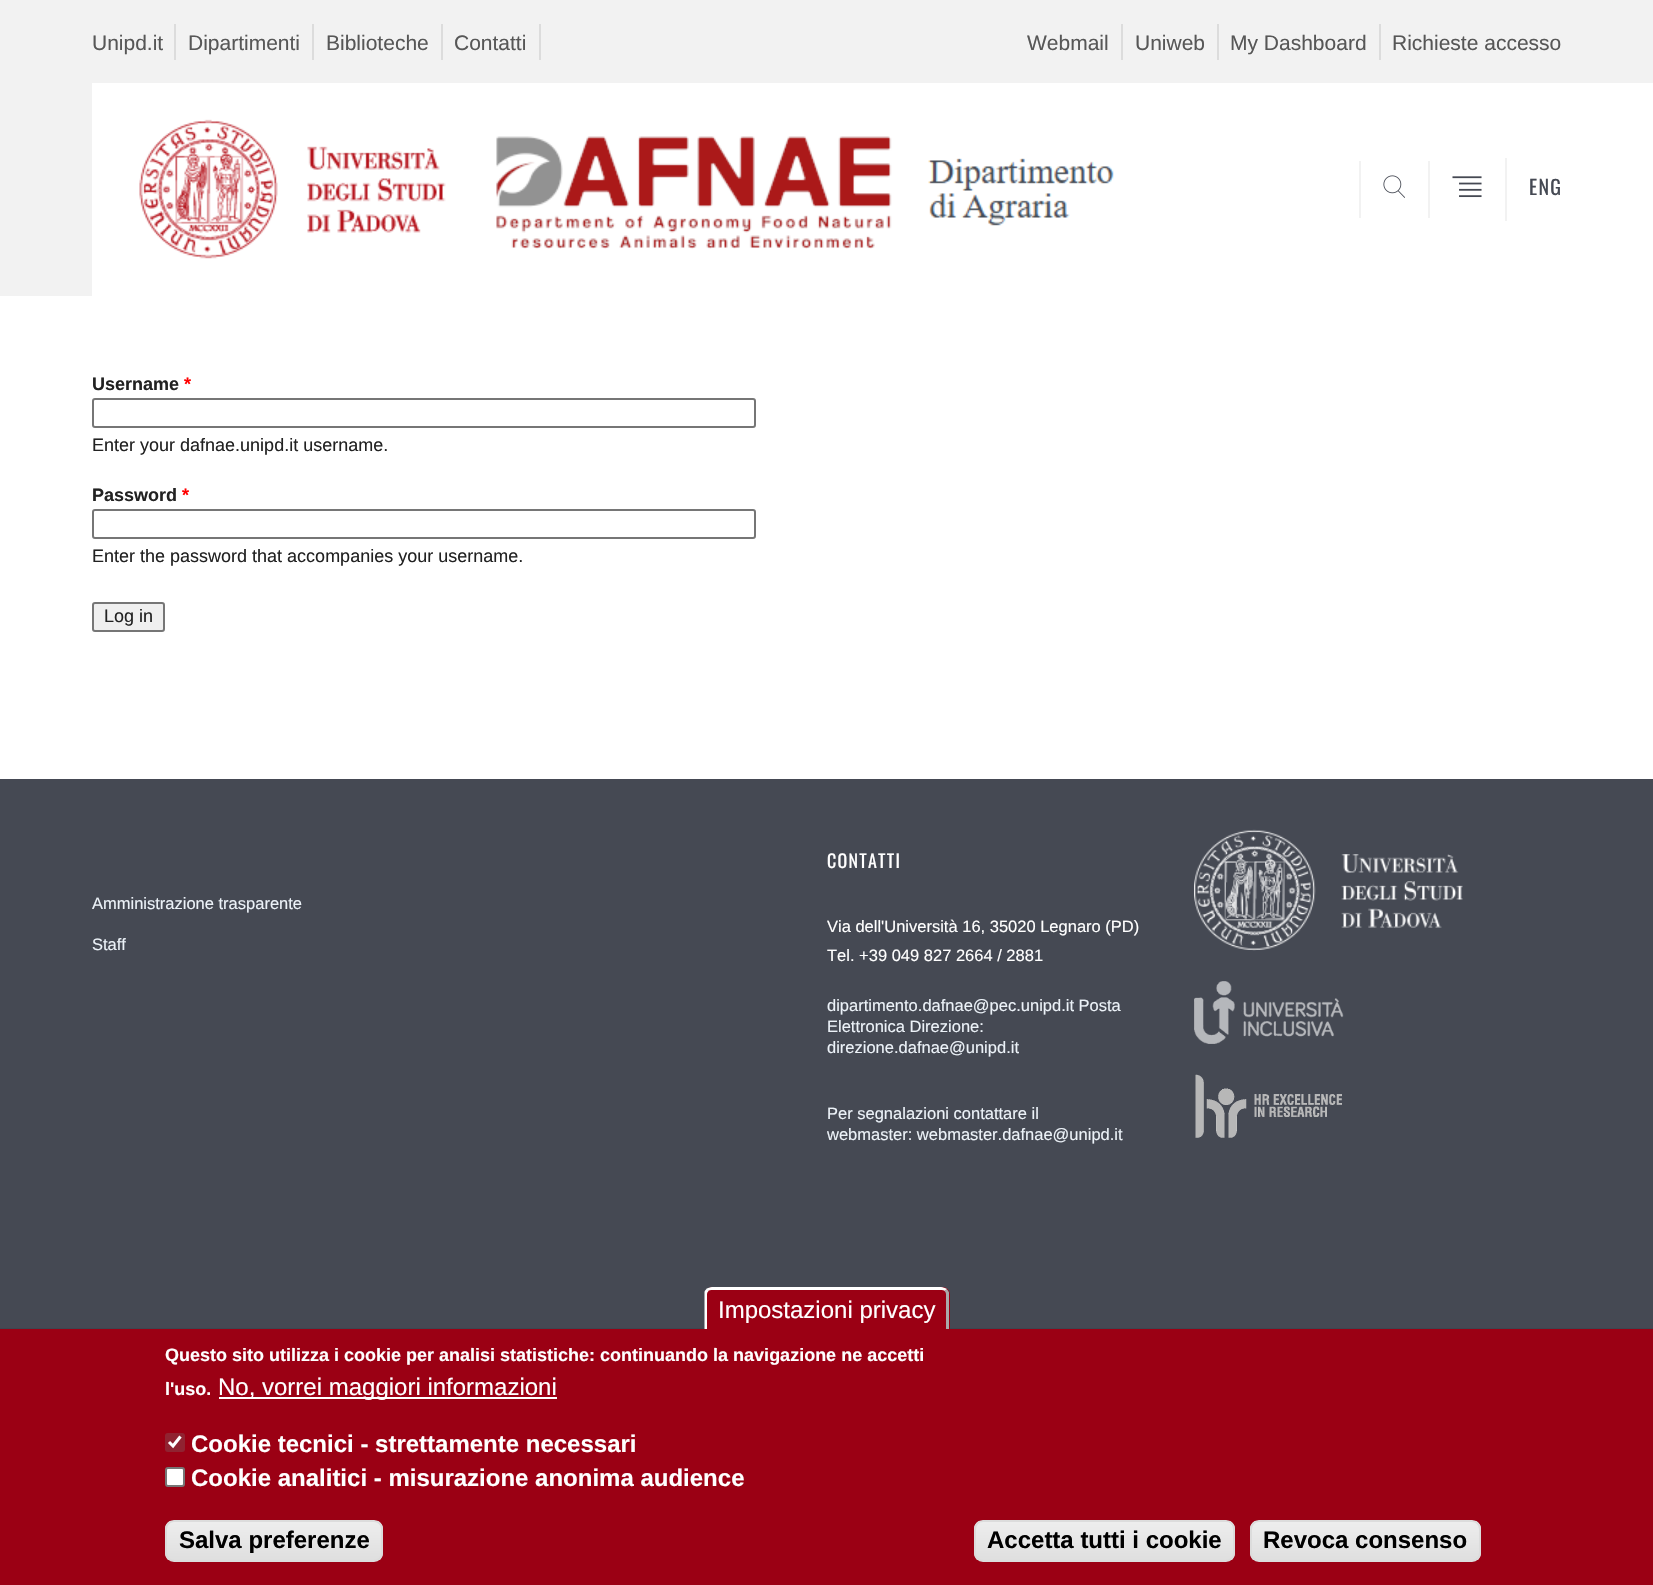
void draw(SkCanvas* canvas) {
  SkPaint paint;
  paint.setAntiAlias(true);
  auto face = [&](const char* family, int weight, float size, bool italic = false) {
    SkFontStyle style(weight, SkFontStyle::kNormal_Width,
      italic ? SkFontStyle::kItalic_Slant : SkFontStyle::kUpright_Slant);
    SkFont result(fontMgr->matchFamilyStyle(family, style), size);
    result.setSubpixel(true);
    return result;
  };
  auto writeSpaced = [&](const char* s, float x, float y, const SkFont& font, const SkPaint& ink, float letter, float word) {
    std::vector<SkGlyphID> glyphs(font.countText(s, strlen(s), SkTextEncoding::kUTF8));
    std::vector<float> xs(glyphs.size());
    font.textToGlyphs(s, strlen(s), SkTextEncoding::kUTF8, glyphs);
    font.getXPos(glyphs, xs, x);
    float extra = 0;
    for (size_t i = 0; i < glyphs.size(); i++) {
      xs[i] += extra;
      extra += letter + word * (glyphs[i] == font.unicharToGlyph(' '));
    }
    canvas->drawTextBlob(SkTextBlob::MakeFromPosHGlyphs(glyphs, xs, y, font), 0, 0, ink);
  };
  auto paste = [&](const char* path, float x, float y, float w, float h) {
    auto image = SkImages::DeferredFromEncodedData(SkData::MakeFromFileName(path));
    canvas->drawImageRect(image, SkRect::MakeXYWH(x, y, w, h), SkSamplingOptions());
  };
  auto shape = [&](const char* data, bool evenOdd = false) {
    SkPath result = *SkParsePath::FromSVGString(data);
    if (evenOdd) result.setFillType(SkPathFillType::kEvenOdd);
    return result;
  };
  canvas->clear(0xffffffff);
  {
    const struct { float x, y, w, h; SkColor color; } items[] = {
      {0, 0, 1653, 296, 0xfff2f2f2},
      {174, 24, 2, 36, 0xffdcdcdc},
      {312, 24, 2, 36, 0xffdcdcdc},
      {441, 24, 2, 36, 0xffdcdcdc},
      {539, 24, 2, 36, 0xffdcdcdc},
      {1121, 24, 2, 36, 0xffdcdcdc},
      {1217, 24, 2, 36, 0xffdcdcdc},
      {1379, 24, 2, 36, 0xffdcdcdc},
    };
    for (auto [x, y, w, h, color] : items) {
      paint.setColor(color);
      canvas->drawRect(SkRect::MakeXYWH(x, y, w, h), paint);
    }
  }
  {
    const SkColor colors[] = {0x009b0014, 0x00ffffff, 0xffffffff, 0xffffffff};
    const float stops[] = {0, 0.5f, 0.51f, 1};
    const SkPoint ends[] = {{0, 189}, {1653, 189}};
    paint.setShader(SkGradientShader::MakeLinear(ends, colors, stops, 4, SkTileMode::kClamp));
    paint.setAlpha(255);
  }
  canvas->drawRect(SkRect::MakeXYWH(1562, 83, 91, 213), paint);
  paint.setShader(nullptr);
  paint.setColor(0xffffffff);
  canvas->drawRect(SkRect::MakeXYWH(92, 83, 1470, 213), paint);
  paste("img/1.png", 139, 119, 307, 140);
  paste("img/2.png", 496, 136, 618, 113);
  paint.setColor(0xfff2f2f2);
  canvas->drawRect(SkRect::MakeXYWH(1359, 161, 2, 57), paint);
  paste("img/3.png", 1383, 175, 22, 23);
  canvas->drawRect(SkRect::MakeXYWH(1428, 161, 2, 57), paint);
  paste("img/4.png", 1452, 176, 30, 22);
  canvas->drawRect(SkRect::MakeXYWH(1505, 158, 2, 63), paint);
  paint.setStroke(true);
  paint.setStrokeWidth(2);
  paint.setColor(0xff767676);
  canvas->drawRoundRect(SkRect::MakeXYWH(93, 399, 662, 28), 2, 2, paint);
  canvas->drawRoundRect(SkRect::MakeXYWH(93, 510, 662, 28), 2, 2, paint);
  paint.setStroke(false);
  paint.setColor(0xffefefef);
  canvas->drawRoundRect(SkRect::MakeXYWH(93, 603, 71, 28), 2, 2, paint);
  paint.setStroke(true);
  paint.setColor(0xff767676);
  canvas->drawRoundRect(SkRect::MakeXYWH(93, 603, 71, 28), 2, 2, paint);
  paint.setStroke(false);
  paint.setColor(0xff454953);
  canvas->drawRect(SkRect::MakeXYWH(0, 779, 1653, 549), paint);
  paste("img/5.png", 1194, 829, 269, 122);
  paste("img/6.png", 1194, 981, 150, 63);
  paste("img/7.png", 1195, 1074, 147, 64);
  paint.setColor(0xff3e454f);
  canvas->drawRect(SkRect::MakeXYWH(0, 1328, 1653, 1), paint);
  paint.setColor(0xff9b0014);
  canvas->drawRect(SkRect::MakeXYWH(0, 1329, 1653, 256), paint);
  canvas->drawPath(shape("M713 1287H942C946.5 1287 950 1290.5 950 1295V1329H705V1295C705 1290.5 708.5 1287 713 1287Z"), paint);
  paint.setColor(0xffffffff);
  canvas->drawPath(shape("M712 1287C710 1287 708 1288 706 1289L708 1291C709 1290 711 1290 712 1290H941C942 1290 944 1290 945 1291L947 1289C945 1288 943 1287 941 1287Z"), paint);
  paint.setColor(0xffaaaaaa);
  canvas->drawPath(shape("M944.5 1291L946.5 1289C947.5 1290 948.5 1291 949 1292.5V1329H946V1294C946 1293 945.5 1292 944.5 1291Z"), paint);
  paint.setColor(0xffffffff);
  canvas->drawPath(shape("M704.5 1329V1292C704.5 1291 705.5 1290 706.5 1289L708.5 1291C707.5 1292 707 1293 707 1294V1329Z"), paint);
  canvas->drawRect(SkRect::MakeXYWH(219, 1397, 338, 2), paint);
  paint.setColor(0xff902331);
  canvas->drawRoundRect(SkRect::MakeXYWH(165, 1433, 20, 19), 3, 3, paint);
  paint.setStroke(true);
  paint.setStrokeWidth(3.1f);
  paint.setColor(0xffffffff);
  canvas->drawPath(shape("M169 1442L173 1446L180.5 1436.5"), paint);
  paint.setStroke(false);
  canvas->drawRoundRect(SkRect::MakeXYWH(166, 1468, 18, 18), 2, 2, paint);
  paint.setStroke(true);
  paint.setStrokeWidth(2);
  paint.setColor(0xff767676);
  canvas->drawRoundRect(SkRect::MakeXYWH(166, 1468, 18, 18), 2, 2, paint);
  canvas->save();
  canvas->clipPath(shape("M174 1520H374C379 1520 383 1524 383 1529V1553C383 1558 379 1562 374 1562H174C169 1562 165 1558 165 1553V1529C165 1524 169 1520 174 1520Z"), true);
  paint.setStroke(false);
  {
    const SkColor colors[] = {0xffededed, 0xffdfdfdf};
    const float stops[] = {0.05f, 1};
    const SkPoint ends[] = {{274, 1521}, {274, 1560}};
    paint.setShader(SkGradientShader::MakeLinear(ends, colors, stops, 2, SkTileMode::kClamp));
    paint.setAlpha(255);
  }
  canvas->drawRect(SkRect::MakeXYWH(165, 1521, 218, 39), paint);
  canvas->restore();
  paint.setStroke(true);
  paint.setShader(nullptr);
  paint.setColor(0xffdcdcdc);
  canvas->drawRoundRect(SkRect::MakeXYWH(166, 1521, 216, 40), 8, 8, paint);
  canvas->save();
  canvas->clipPath(shape("M983 1520H1226C1231 1520 1235 1524 1235 1529V1553C1235 1558 1231 1562 1226 1562H983C978 1562 974 1558 974 1553V1529C974 1524 978 1520 983 1520Z"), true);
  paint.setStroke(false);
  {
    const SkColor colors[] = {0xffededed, 0xffdfdfdf};
    const float stops[] = {0.05f, 1};
    const SkPoint ends[] = {{1104, 1521}, {1104, 1560}};
    paint.setShader(SkGradientShader::MakeLinear(ends, colors, stops, 2, SkTileMode::kClamp));
    paint.setAlpha(255);
  }
  canvas->drawRect(SkRect::MakeXYWH(974, 1521, 261, 39), paint);
  canvas->restore();
  paint.setShader(nullptr);
  paint.setColor(0xffffffff);
  canvas->drawPath(shape("M982 1522H1226C1230 1522 1233 1526 1233 1530C1233 1526 1231 1522 1227 1521H983C978 1521 975 1525 975 1530C975 1526 978 1522 982 1522Z"), paint);
  paint.setStroke(true);
  paint.setColor(0xffdcdcdc);
  canvas->drawRoundRect(SkRect::MakeXYWH(975, 1521, 259, 40), 8, 8, paint);
  canvas->save();
  canvas->clipPath(shape("M1259 1520H1472C1477 1520 1481 1524 1481 1529V1553C1481 1558 1477 1562 1472 1562H1259C1254 1562 1250 1558 1250 1553V1529C1250 1524 1254 1520 1259 1520Z"), true);
  paint.setStroke(false);
  {
    const SkColor colors[] = {0xffededed, 0xffdfdfdf};
    const float stops[] = {0.05f, 1};
    const SkPoint ends[] = {{1365, 1521}, {1365, 1560}};
    paint.setShader(SkGradientShader::MakeLinear(ends, colors, stops, 2, SkTileMode::kClamp));
    paint.setAlpha(255);
  }
  canvas->drawRect(SkRect::MakeXYWH(1250, 1521, 231, 39), paint);
  canvas->restore();
  paint.setStroke(true);
  paint.setShader(nullptr);
  paint.setColor(0xffdcdcdc);
  canvas->drawRoundRect(SkRect::MakeXYWH(1251, 1521, 229, 40), 8, 8, paint);
  auto f0 = face("Liberation Sans", 400, 21);
  paint.setStroke(false);
  paint.setColor(0xff575757);
  {
    const struct { const char* s; float x, y; } items[] = {
      {"Unipd.it", 92, 50},
      {"Dipartimenti", 188, 50},
      {"Biblioteche", 326, 50},
      {"Contatti", 454, 50},
      {"Webmail", 1027, 50},
      {"Uniweb", 1135, 50},
      {"My Dashboard", 1230, 50},
      {"Richieste accesso", 1392, 50},
    };
    for (auto [s, x, y] : items) {
      canvas->drawString(s, x, y, f0, paint);
    }
  }
  auto f1 = face("Oswald", 400, 20);
  paint.setColor(0xff454953);
  writeSpaced("ENG", 1529, 195, f1, paint, 1.25f, 0);
  auto f2 = face("Liberation Sans", 700, 18);
  paint.setColor(0xff222222);
  canvas->drawString("Username", 92, 390, f2, paint);
  paint.setColor(0xffff0000);
  canvas->drawString("*", 184, 390, f2, paint);
  auto f3 = face("Liberation Sans", 400, 18);
  paint.setColor(0xff222222);
  canvas->drawString("Enter your dafnae.unipd.it username.", 92, 451, f3, paint);
  canvas->drawString("Password", 92, 501, f2, paint);
  paint.setColor(0xffff0000);
  canvas->drawString("*", 182, 501, f2, paint);
  paint.setColor(0xff222222);
  canvas->drawString("Enter the password that accompanies your username.", 92, 562, f3, paint);
  canvas->drawString("Log in", 104, 622, f3, paint);
  auto f4 = face("Liberation Sans", 400, 16.5f);
  paint.setColor(0xffecf2f8);
  canvas->drawString("Amministrazione trasparente", 92, 909, f4, paint);
  canvas->drawString("Staff", 92, 950, f4, paint);
  auto f5 = face("Oswald", 400, 18);
  paint.setColor(0xffffffff);
  writeSpaced("CONTATTI", 827, 868, f5, paint, 1.25f, 0);
  canvas->drawString("Via dell'Università 16, 35020 Legnaro (PD)", 827, 932, f4, paint);
  canvas->drawString("Tel. +39 049 827 2664 / 2881", 827, 961, f4, paint);
  paint.setColor(0xffecf2f8);
  {
    const struct { const char* s; float x, y; } items[] = {
      {"dipartimento.dafnae@pec.unipd.it Posta", 827, 1011},
      {"Elettronica Direzione:", 827, 1032},
      {"direzione.dafnae@unipd.it", 827, 1053},
      {"Per segnalazioni contattare il", 827, 1119},
      {"webmaster: webmaster.dafnae@unipd.it", 827, 1140},
    };
    for (auto [s, x, y] : items) {
      canvas->drawString(s, x, y, f4, paint);
    }
  }
  auto f6 = face("Liberation Sans", 400, 24);
  paint.setColor(0xffffffff);
  canvas->drawString("Impostazioni privacy", 718, 1318, f6, paint);
  canvas->drawString("Questo sito utilizza i cookie per analisi statistiche: continuando la navigazione ne accetti", 165, 1361, f2, paint);
  canvas->drawString("l'uso.", 165, 1395, f2, paint);
  canvas->drawString("No, vorrei maggiori informazioni", 218, 1395, f6, paint);
  auto f7 = face("Liberation Sans", 700, 24);
  canvas->drawString("Cookie tecnici - strettamente necessari", 191, 1452, f7, paint);
  canvas->drawString("Cookie analitici - misurazione anonima audience", 191, 1486, f7, paint);
  paint.setColor(0xff000000);
  {
    const struct { const char* s; float x, y; } items[] = {
      {"Salva preferenze", 179, 1548},
      {"Accetta tutti i cookie", 987, 1548},
      {"Revoca consenso", 1263, 1548},
    };
    for (auto [s, x, y] : items) {
      canvas->drawString(s, x, y, f7, paint);
    }
  }
}
